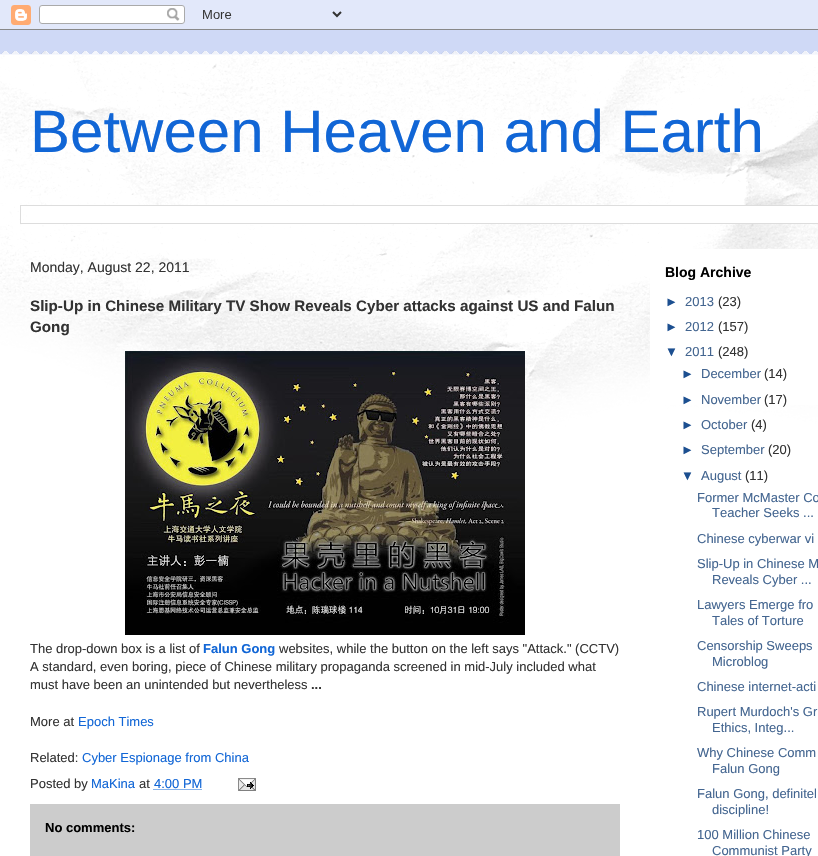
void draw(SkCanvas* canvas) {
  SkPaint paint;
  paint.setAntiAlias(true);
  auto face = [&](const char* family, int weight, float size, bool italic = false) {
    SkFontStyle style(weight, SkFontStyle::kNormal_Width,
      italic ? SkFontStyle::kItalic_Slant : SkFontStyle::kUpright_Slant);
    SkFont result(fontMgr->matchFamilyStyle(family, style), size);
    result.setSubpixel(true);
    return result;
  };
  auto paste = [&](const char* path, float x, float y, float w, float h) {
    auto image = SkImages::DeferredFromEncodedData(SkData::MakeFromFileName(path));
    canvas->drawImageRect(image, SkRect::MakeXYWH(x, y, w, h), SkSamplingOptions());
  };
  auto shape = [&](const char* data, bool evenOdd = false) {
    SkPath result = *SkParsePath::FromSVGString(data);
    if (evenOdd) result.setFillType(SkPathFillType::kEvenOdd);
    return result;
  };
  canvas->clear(0xffcfd9f6);
  paste("img/1.png", 0, 0, 818, 30);
  paste("img/2.png", 0, 51, 818, 4);
  paint.setColor(0xffffffff);
  canvas->drawRect(SkRect::MakeXYWH(0, 55, 818, 801), paint);
  paste("img/3.png", 0, 55, 818, 386);
  canvas->drawRect(SkRect::MakeXYWH(27, 206, 791, 17), paint);
  paint.setStroke(true);
  paint.setStrokeWidth(1);
  paint.setColor(0xffdddddd);
  canvas->drawRect(SkRect::MakeXYWH(20.5f, 205.5f, 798, 18), paint);
  paint.setStroke(false);
  paint.setColor(0xffffffff);
  canvas->drawRect(SkRect::MakeXYWH(650, 249, 168, 156), paint);
  paste("img/4.png", 125, 351, 400, 284);
  paint.setStroke(true);
  paint.setColor(0xff1166d6);
  paint.setPathEffect(SkDashPathEffect::Make({{1, 1}}, 0));
  canvas->drawPath(shape("M153.5 789.5H202"), paint);
  paint.setPathEffect(nullptr);
  paste("img/5.png", 238, 778, 18, 13);
  paint.setStroke(false);
  paint.setColor(0xffcccccc);
  canvas->drawRect(SkRect::MakeXYWH(30, 804, 590, 52), paint);
  auto f0 = face("Liberation Sans", 400, 60);
  paint.setColor(0xff1166d6);
  canvas->drawString("Between Heaven and Earth", 30, 152, f0, paint);
  auto f1 = face("Liberation Sans", 400, 14);
  paint.setColor(0xff333333);
  canvas->drawString("Monday, August 22, 2011", 30, 272, f1, paint);
  auto f2 = face("Liberation Sans", 700, 15.2f);
  canvas->drawString("Slip-Up in Chinese Military TV Show Reveals Cyber attacks against US and Falun", 30, 311, f2, paint);
  canvas->drawString("Gong", 30, 332, f2, paint);
  auto f3 = face("Liberation Sans", 400, 13);
  canvas->drawString("The drop-down box is a list of", 30, 653, f3, paint);
  auto f4 = face("Liberation Sans", 700, 13);
  paint.setColor(0xff1166d6);
  canvas->drawString("Falun Gong", 203, 653, f4, paint);
  paint.setColor(0xff333333);
  {
    const struct { const char* s; float x, y; } items[] = {
      {"websites, while the button on the left says \"Attack.\" (CCTV)", 279, 653},
      {"A standard, even boring, piece of Chinese military propaganda screened in mid-July included what", 30, 671},
      {"must have been an unintended but nevertheless", 30, 689},
    };
    for (auto [s, x, y] : items) {
      canvas->drawString(s, x, y, f3, paint);
    }
  }
  canvas->drawString("...", 311, 689, f4, paint);
  canvas->drawString("More at", 30, 726, f3, paint);
  paint.setColor(0xff1166d6);
  canvas->drawString("Epoch Times", 78, 726, f3, paint);
  paint.setColor(0xff333333);
  canvas->drawString("Related:", 30, 762, f3, paint);
  paint.setColor(0xff1166d6);
  canvas->drawString("Cyber Espionage from China", 82, 762, f3, paint);
  paint.setColor(0xff333333);
  canvas->drawString("Posted by", 30, 788, f3, paint);
  paint.setColor(0xff1166d6);
  canvas->drawString("MaKina", 91, 788, f3, paint);
  paint.setColor(0xff333333);
  canvas->drawString("at", 139, 788, f3, paint);
  paint.setColor(0xff1166d6);
  canvas->drawString("4:00 PM", 154, 788, f3, paint);
  paint.setColor(0xff000000);
  canvas->drawString("No comments:", 45, 832, f4, paint);
  auto f5 = face("Liberation Sans", 700, 14);
  canvas->drawString("Blog Archive", 665, 277, f5, paint);
  paint.setColor(0xff1c4f90);
  canvas->drawString("►", 665, 306, f3, paint);
  paint.setColor(0xff436590);
  canvas->drawString("2013", 685, 306, f3, paint);
  paint.setColor(0xff333333);
  canvas->drawString("(23)", 718, 306, f3, paint);
  paint.setColor(0xff1c4f90);
  canvas->drawString("►", 665, 331, f3, paint);
  paint.setColor(0xff436590);
  canvas->drawString("2012", 685, 331, f3, paint);
  paint.setColor(0xff333333);
  canvas->drawString("(157)", 718, 331, f3, paint);
  paint.setColor(0xff1c4f90);
  canvas->drawString("▼", 665, 356, f3, paint);
  paint.setColor(0xff436590);
  canvas->drawString("2011", 685, 356, f3, paint);
  paint.setColor(0xff333333);
  canvas->drawString("(248)", 718, 356, f3, paint);
  paint.setColor(0xff1c4f90);
  canvas->drawString("►", 681, 378, f3, paint);
  paint.setColor(0xff436590);
  canvas->drawString("December", 701, 378, f3, paint);
  paint.setColor(0xff333333);
  canvas->drawString("(14)", 764, 378, f3, paint);
  paint.setColor(0xff1c4f90);
  canvas->drawString("►", 681, 404, f3, paint);
  paint.setColor(0xff436590);
  canvas->drawString("November", 701, 404, f3, paint);
  paint.setColor(0xff333333);
  canvas->drawString("(17)", 764, 404, f3, paint);
  paint.setColor(0xff1c4f90);
  canvas->drawString("►", 681, 429, f3, paint);
  paint.setColor(0xff436590);
  canvas->drawString("October", 701, 429, f3, paint);
  paint.setColor(0xff333333);
  canvas->drawString("(4)", 751, 429, f3, paint);
  paint.setColor(0xff1c4f90);
  canvas->drawString("►", 681, 454, f3, paint);
  paint.setColor(0xff436590);
  canvas->drawString("September", 701, 454, f3, paint);
  paint.setColor(0xff333333);
  canvas->drawString("(20)", 768, 454, f3, paint);
  paint.setColor(0xff1c4f90);
  canvas->drawString("▼", 681, 480, f3, paint);
  paint.setColor(0xff436590);
  canvas->drawString("August", 701, 480, f3, paint);
  paint.setColor(0xff333333);
  canvas->drawString("(11)", 745, 480, f3, paint);
  paint.setColor(0xff436590);
  {
    const struct { const char* s; float x, y; } items[] = {
      {"Former McMaster Co", 697, 502},
      {"Teacher Seeks ...", 712, 517},
      {"Chinese cyberwar vi", 697, 543},
      {"Slip-Up in Chinese M", 697, 568},
      {"Reveals Cyber ...", 712, 584},
      {"Lawyers Emerge fro", 697, 609},
      {"Tales of Torture", 712, 625},
      {"Censorship Sweeps", 697, 650},
      {"Microblog", 712, 666},
      {"Chinese internet-acti", 697, 691},
      {"Rupert Murdoch's Gr", 697, 716},
      {"Ethics, Integ...", 712, 732},
      {"Why Chinese Comm", 697, 757},
      {"Falun Gong", 712, 773},
      {"Falun Gong, definitel", 697, 798},
      {"discipline!", 712, 814},
      {"100 Million Chinese", 697, 839},
      {"Communist Party", 712, 855},
    };
    for (auto [s, x, y] : items) {
      canvas->drawString(s, x, y, f3, paint);
    }
  }
}
